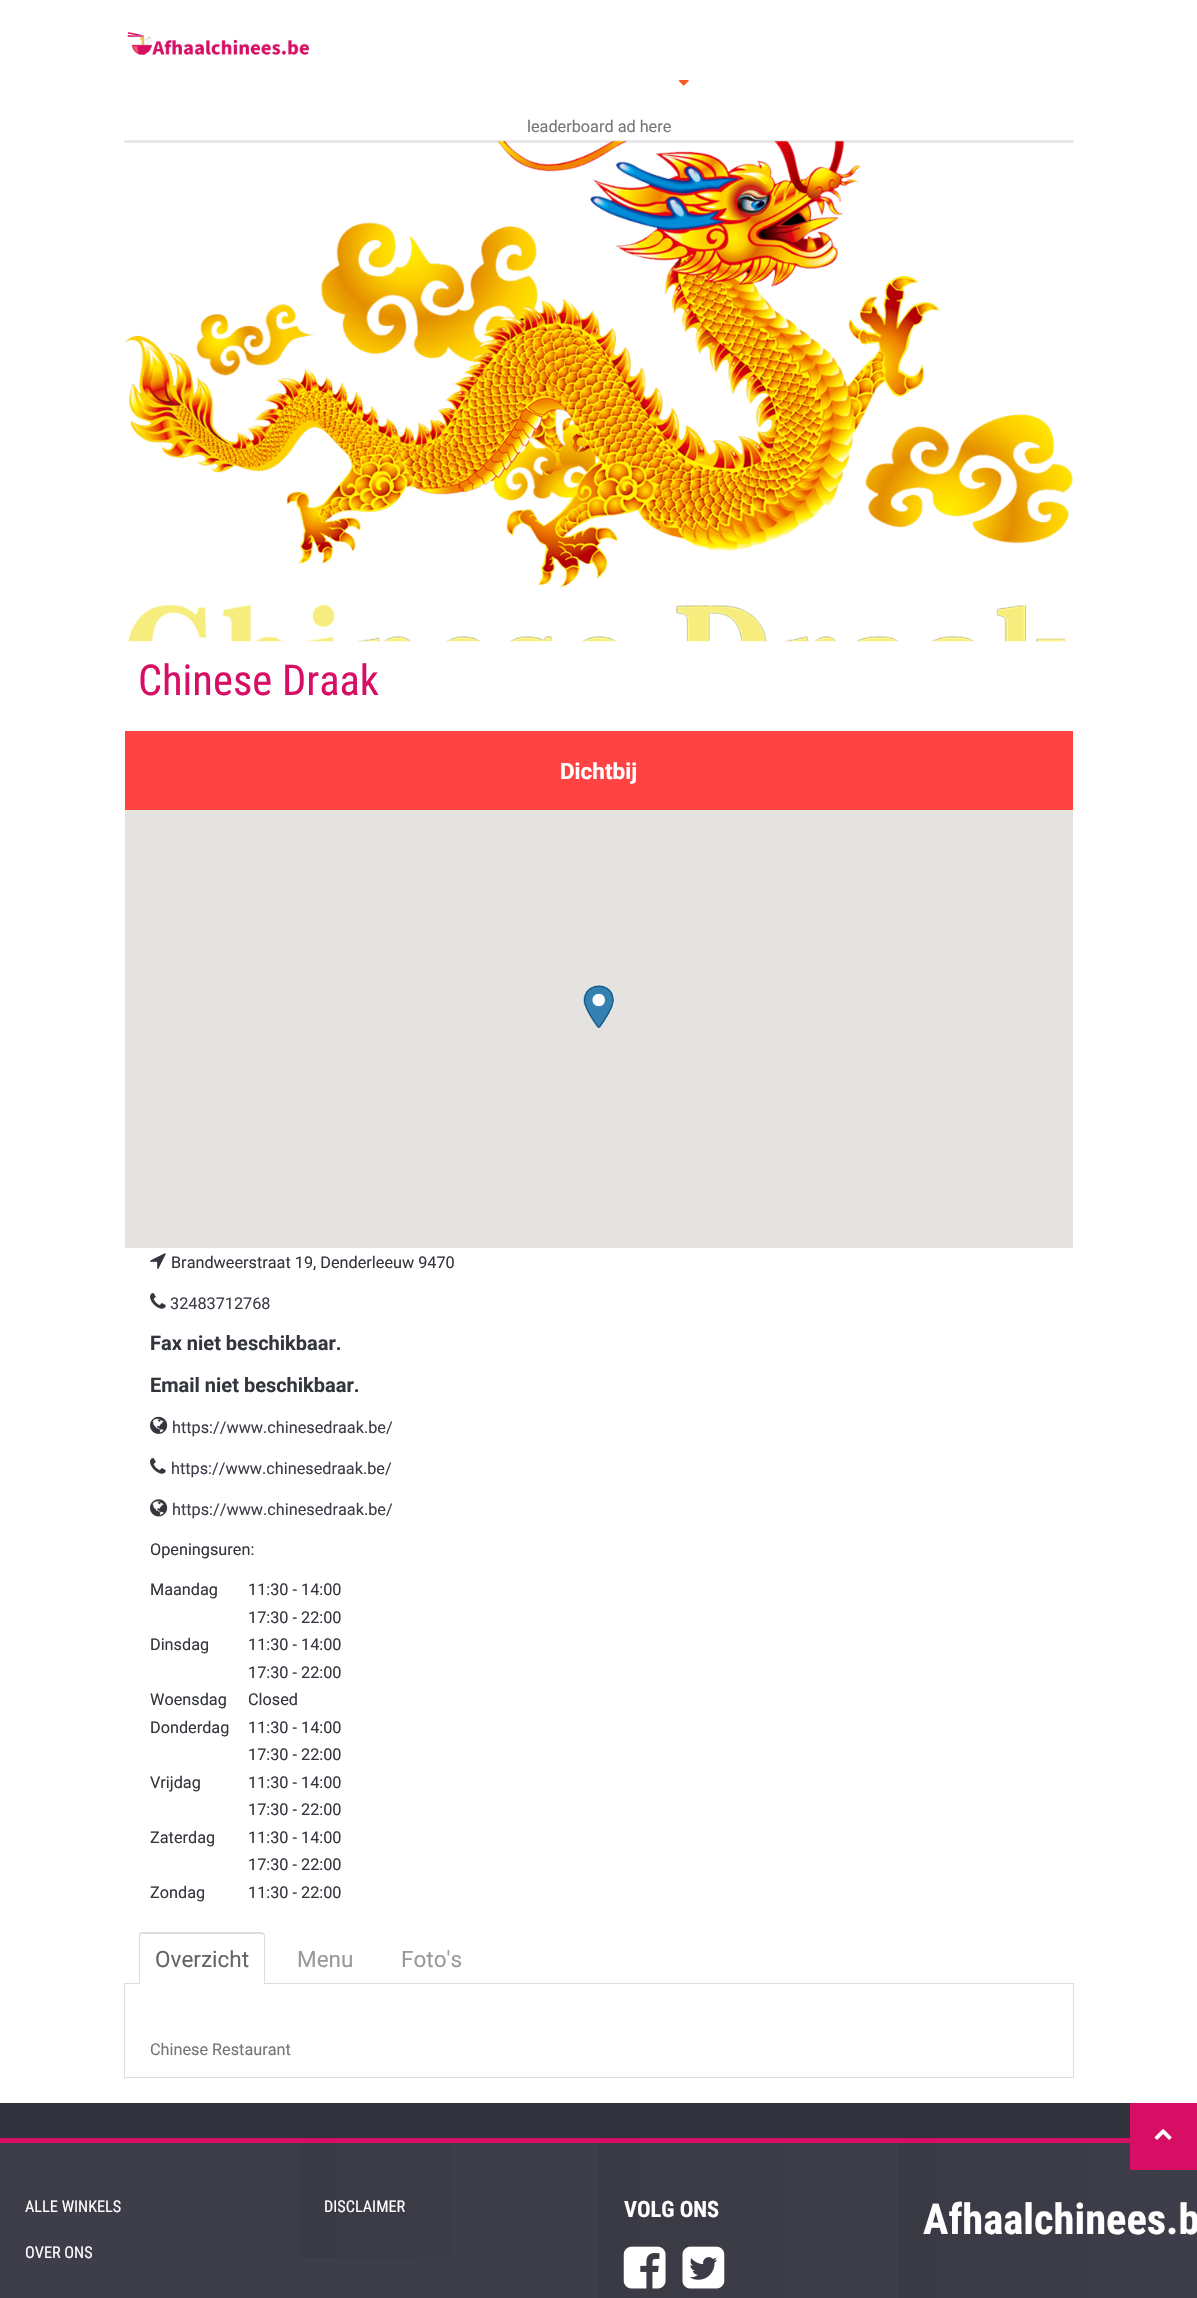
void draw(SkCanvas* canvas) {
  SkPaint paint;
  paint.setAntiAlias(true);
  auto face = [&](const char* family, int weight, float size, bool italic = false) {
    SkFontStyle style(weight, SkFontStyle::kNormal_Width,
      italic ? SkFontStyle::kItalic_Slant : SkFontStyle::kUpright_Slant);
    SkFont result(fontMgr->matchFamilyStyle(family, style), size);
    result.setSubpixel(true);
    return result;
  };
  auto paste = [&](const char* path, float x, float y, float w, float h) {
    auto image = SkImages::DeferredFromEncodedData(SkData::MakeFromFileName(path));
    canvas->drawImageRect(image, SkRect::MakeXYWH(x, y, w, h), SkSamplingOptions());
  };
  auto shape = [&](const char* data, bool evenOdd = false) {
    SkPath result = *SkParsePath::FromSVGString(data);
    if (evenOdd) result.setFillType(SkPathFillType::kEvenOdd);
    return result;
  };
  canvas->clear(0xffffffff);
  paste("img/1.png", 127, 32, 183, 23);
  paste("img/2.png", 678, 80, 11, 6);
  paint.setColor(0xffe7e7e7);
  canvas->drawRoundRect(SkRect::MakeXYWH(124, 140, 950, 3), 1.5f, 1.5f, paint);
  paste("img/3.png", 125, 141, 948, 501);
  paint.setColor(0xffff4343);
  canvas->drawRect(SkRect::MakeXYWH(125, 731, 948, 79), paint);
  paint.setColor(0xffe5e3df);
  canvas->drawRect(SkRect::MakeXYWH(125, 810, 948, 438), paint);
  paste("img/4.png", 583, 985, 31, 43);
  paste("img/5.png", 150, 1253, 16, 16);
  paste("img/6.png", 150, 1293, 16, 16);
  paste("img/7.png", 150, 1416, 18, 18);
  paste("img/6.png", 150, 1458, 16, 16);
  paste("img/8.png", 150, 1499, 18, 18);
  paint.setStroke(true);
  paint.setStrokeWidth(1);
  paint.setColor(0xffdddddd);
  canvas->drawRect(SkRect::MakeXYWH(124.5f, 1983.5f, 949, 94), paint);
  paint.setStroke(false);
  paint.setColor(0xffffffff);
  canvas->drawPath(shape("M143 1933H261C263 1933 265 1935 265 1937V1984H139V1937C139 1935 141 1933 143 1933Z"), paint);
  paint.setColor(0xffdddddd);
  canvas->drawPath(shape("M142 1932H261C263 1932 265 1934 265 1936V1984H139V1936C139 1934 140 1932 142 1932ZM142 1934H261C263 1934 264 1935 264 1936V1984H140V1936C140 1935 141 1934 142 1934Z", true), paint);
  paint.setColor(0xff32323c);
  canvas->drawRect(SkRect::MakeXYWH(0, 2103, 1130, 35), paint);
  paint.setColor(0xffd70f64);
  canvas->drawRect(SkRect::MakeXYWH(0, 2138, 1130, 5), paint);
  {
    const SkColor colors[] = {0xff3a3a45, 0xff3e3e4a};
    const float stops[] = {0, 1};
    const SkPoint ends[] = {{899, 2222}, {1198, 2222}};
    paint.setShader(SkGradientShader::MakeLinear(ends, colors, stops, 2, SkTileMode::kClamp));
    paint.setAlpha(255);
  }
  canvas->drawRect(SkRect::MakeXYWH(899, 2143, 298, 155), paint);
  paint.setShader(nullptr);
  paint.setColor(0xffd70f64);
  canvas->drawRect(SkRect::MakeXYWH(1130, 2103, 67, 67), paint);
  paste("img/9.png", 1154, 2129, 18, 11);
  paint.setColor(0xff3e3e4a);
  canvas->drawRect(SkRect::MakeXYWH(0, 2143, 599, 155), paint);
  {
    const SkColor colors[] = {0xff3a3a45, 0xff3e3e4a};
    const float stops[] = {0, 1};
    const SkPoint ends[] = {{300, 2200}, {599, 2200}};
    paint.setShader(SkGradientShader::MakeLinear(ends, colors, stops, 2, SkTileMode::kClamp));
    paint.setAlpha(255);
  }
  canvas->drawRect(SkRect::MakeXYWH(300, 2143, 150, 115), paint);
  {
    const SkColor colors[] = {0xff3a3a45, 0xff3e3e4a};
    const float stops[] = {0, 1};
    const SkPoint ends[] = {{599, 2237}, {899, 2237}};
    paint.setShader(SkGradientShader::MakeLinear(ends, colors, stops, 2, SkTileMode::kClamp));
    paint.setAlpha(255);
  }
  canvas->drawRect(SkRect::MakeXYWH(599, 2143, 300, 155), paint);
  paste("img/10.png", 623, 2246, 43, 43);
  paste("img/11.png", 682, 2246, 43, 43);
  auto f0 = face("Roboto", 400, 16.25f);
  paint.setShader(nullptr);
  paint.setColor(0xff757575);
  canvas->drawString("leaderboard ad here", 527, 132, f0, paint);
  auto f1 = face("Roboto Condensed", 400, 42.5f);
  paint.setColor(0xffd70f64);
  canvas->drawString("Chinese Draak", 138, 695, f1, paint);
  auto f2 = face("Roboto", 700, 22.5f);
  paint.setColor(0xffffffff);
  canvas->drawString("Dichtbij", 560, 779, f2, paint);
  paint.setColor(0xff33373d);
  canvas->drawString("Brandweerstraat 19, Denderleeuw 9470", 171, 1268, f0, paint);
  paint.setColor(0xff3e3e4a);
  canvas->drawString("32483712768", 170, 1309, f0, paint);
  auto f3 = face("Roboto", 700, 20);
  paint.setColor(0xff33373d);
  canvas->drawString("Fax niet beschikbaar.", 150, 1350, f3, paint);
  canvas->drawString("Email niet beschikbaar.", 150, 1392, f3, paint);
  paint.setColor(0xff3e3e4a);
  {
    const struct { const char* s; float x, y; } items[] = {
      {"https://www.chinesedraak.be/", 172, 1433},
      {"https://www.chinesedraak.be/", 171, 1474},
      {"https://www.chinesedraak.be/", 172, 1515},
    };
    for (auto [s, x, y] : items) {
      canvas->drawString(s, x, y, f0, paint);
    }
  }
  paint.setColor(0xff33373d);
  {
    const struct { const char* s; float x, y; } items[] = {
      {"Openingsuren:", 150, 1555},
      {"Maandag", 150, 1595},
      {"11:30 - 14:00", 248, 1595},
      {"17:30 - 22:00", 248, 1623},
      {"Dinsdag", 150, 1650},
      {"11:30 - 14:00", 248, 1650},
      {"17:30 - 22:00", 248, 1678},
      {"Woensdag", 150, 1705},
      {"Closed", 248, 1705},
      {"Donderdag", 150, 1733},
      {"11:30 - 14:00", 248, 1733},
      {"17:30 - 22:00", 248, 1760},
      {"Vrijdag", 150, 1788},
      {"11:30 - 14:00", 248, 1788},
      {"17:30 - 22:00", 248, 1815},
      {"Zaterdag", 150, 1843},
      {"11:30 - 14:00", 248, 1843},
      {"17:30 - 22:00", 248, 1870},
      {"Zondag", 150, 1898},
      {"11:30 - 22:00", 248, 1898},
    };
    for (auto [s, x, y] : items) {
      canvas->drawString(s, x, y, f0, paint);
    }
  }
  auto f4 = face("Roboto", 400, 22.5f);
  paint.setColor(0xff666666);
  canvas->drawString("Overzicht", 155, 1967, f4, paint);
  paint.setColor(0xff999999);
  canvas->drawString("Menu", 297, 1967, f4, paint);
  canvas->drawString("Foto's", 401, 1967, f4, paint);
  paint.setColor(0xff757575);
  canvas->drawString("Chinese Restaurant", 150, 2055, f0, paint);
  auto f5 = face("Roboto Condensed", 400, 16.25f);
  paint.setColor(0xffffffff);
  {
    const struct { const char* s; float x, y; } items[] = {
      {"ALLE WINKELS", 25, 2212},
      {"OVER ONS", 25, 2258},
      {"DISCLAIMER", 324, 2212},
    };
    for (auto [s, x, y] : items) {
      canvas->drawString(s, x, y, f5, paint);
    }
  }
  auto f6 = face("Roboto Condensed", 700, 22.5f);
  canvas->drawString("VOLG ONS", 624, 2217, f6, paint);
  auto f7 = face("Roboto Condensed", 700, 42.5f);
  canvas->drawString("Afhaalchinees.b", 923, 2234, f7, paint);
}
